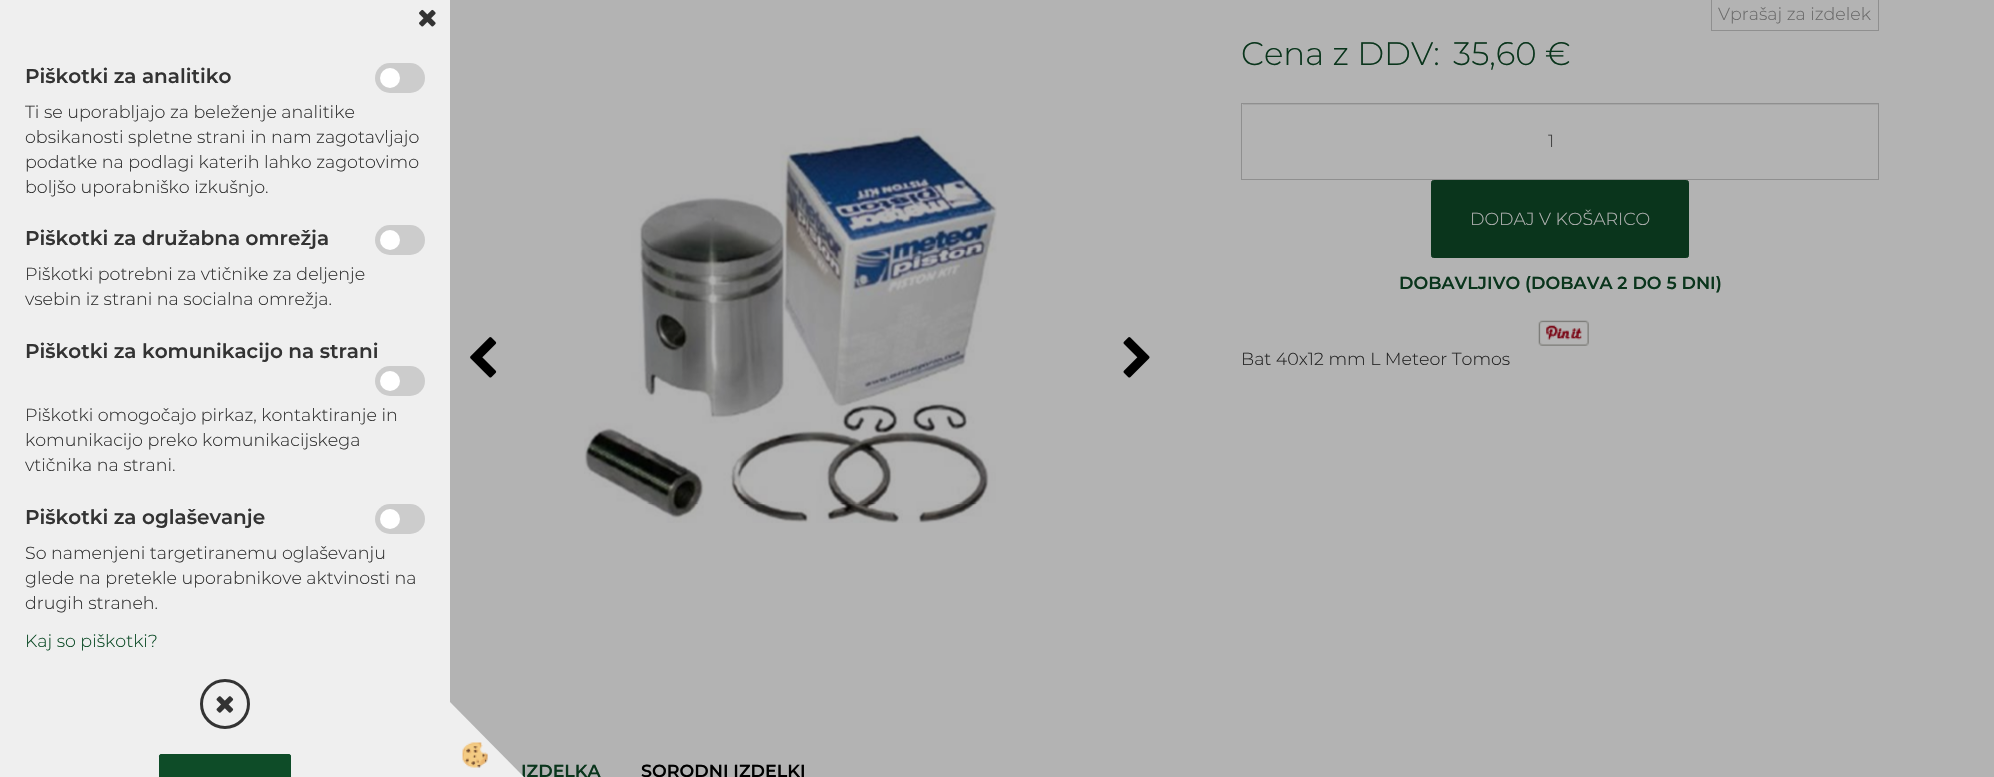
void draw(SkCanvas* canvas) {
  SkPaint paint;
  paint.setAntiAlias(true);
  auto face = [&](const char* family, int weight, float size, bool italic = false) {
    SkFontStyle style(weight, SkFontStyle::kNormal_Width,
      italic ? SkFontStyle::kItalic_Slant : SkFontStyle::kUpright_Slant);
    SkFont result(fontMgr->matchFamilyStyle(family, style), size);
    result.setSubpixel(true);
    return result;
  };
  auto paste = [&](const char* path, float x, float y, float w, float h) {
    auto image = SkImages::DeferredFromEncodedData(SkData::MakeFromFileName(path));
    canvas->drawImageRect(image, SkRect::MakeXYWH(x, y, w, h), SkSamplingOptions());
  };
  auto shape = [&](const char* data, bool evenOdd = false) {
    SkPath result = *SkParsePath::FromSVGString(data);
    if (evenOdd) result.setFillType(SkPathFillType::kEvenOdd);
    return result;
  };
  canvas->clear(0xffb3b3b3);
  paint.setColor(0xffefefef);
  canvas->drawRect(SkRect::MakeXYWH(0, 0, 450, 777), paint);
  paste("img/1.png", 419, 9, 17, 18);
  paint.setColor(0xffcccccc);
  canvas->drawRoundRect(SkRect::MakeXYWH(375, 63, 50, 30), 15, 15, paint);
  paint.setColor(0xffffffff);
  canvas->drawCircle(390, 78, 10, paint);
  paint.setColor(0xffcccccc);
  canvas->drawRoundRect(SkRect::MakeXYWH(375, 225, 50, 30), 15, 15, paint);
  paint.setColor(0xffffffff);
  canvas->drawCircle(390, 240, 10, paint);
  paint.setColor(0xffcccccc);
  canvas->drawRoundRect(SkRect::MakeXYWH(375, 366, 50, 30), 15, 15, paint);
  paint.setColor(0xffffffff);
  canvas->drawCircle(390, 381, 10, paint);
  paint.setColor(0xffcccccc);
  canvas->drawRoundRect(SkRect::MakeXYWH(375, 504, 50, 30), 15, 15, paint);
  paint.setColor(0xffffffff);
  canvas->drawCircle(390, 519, 10, paint);
  paint.setStroke(true);
  paint.setStrokeWidth(3);
  paint.setColor(0xff333333);
  canvas->drawCircle(225, 704, 23.5f, paint);
  paste("img/2.png", 216, 696, 18, 17);
  paint.setStroke(false);
  paint.setColor(0xff0e4c28);
  canvas->drawPath(shape("M161.5 754H288.5C290 754 291 755 291 756.5V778H159V756.5C159 755 160 754 161.5 754Z"), paint);
  paint.setStroke(true);
  paint.setStrokeWidth(1);
  canvas->drawRoundRect(SkRect::MakeXYWH(159.5f, 754.5f, 131, 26), 2, 2, paint);
  paste("img/4.png", 470, 337, 27, 41);
  paste("img/5.png", 584, 128, 413, 395);
  paste("img/6.png", 1123, 337, 27, 41);
  paint.setColor(0xff8f8f8f);
  canvas->drawRect(SkRect::MakeXYWH(1711.5f, -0.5f, 167, 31), paint);
  paint.setStroke(false);
  paint.setColor(0xffa5a5a5);
  canvas->drawRect(SkRect::MakeXYWH(1243, 104, 635, 1), paint);
  paint.setStroke(true);
  paint.setColor(0xff8f8f8f);
  canvas->drawRect(SkRect::MakeXYWH(1241.5f, 103.5f, 637, 76), paint);
  paint.setStroke(false);
  paint.setColor(0xff0a351c);
  canvas->drawRoundRect(SkRect::MakeXYWH(1431.5f, 180.5f, 257, 77), 2, 2, paint);
  paint.setStroke(true);
  canvas->drawRoundRect(SkRect::MakeXYWH(1431.5f, 180.5f, 257, 77), 2, 2, paint);
  paste("img/7.png", 1538, 320, 51, 26);
  auto f0 = face("Montserrat", 600, 20);
  paint.setStroke(false);
  paint.setColor(0xff333333);
  canvas->drawString("Piškotki za analitiko", 25, 83, f0, paint);
  auto f1 = face("Montserrat", 300, 17.5f);
  {
    const struct { const char* s; float x, y; } items[] = {
      {"Ti se uporabljajo za beleženje analitike", 25, 118},
      {"obsikanosti spletne strani in nam zagotavljajo", 25, 143},
      {"podatke na podlagi katerih lahko zagotovimo", 25, 168},
      {"boljšo uporabniško izkušnjo.", 25, 193},
    };
    for (auto [s, x, y] : items) {
      canvas->drawString(s, x, y, f1, paint);
    }
  }
  canvas->drawString("Piškotki za družabna omrežja", 25, 245, f0, paint);
  canvas->drawString("Piškotki potrebni za vtičnike za deljenje", 25, 280, f1, paint);
  canvas->drawString("vsebin iz strani na socialna omrežja.", 25, 305, f1, paint);
  canvas->drawString("Piškotki za komunikacijo na strani", 25, 358, f0, paint);
  {
    const struct { const char* s; float x, y; } items[] = {
      {"Piškotki omogočajo pirkaz, kontaktiranje in", 25, 421},
      {"komunikacijo preko komunikacijskega", 25, 446},
      {"vtičnika na strani.", 25, 471},
    };
    for (auto [s, x, y] : items) {
      canvas->drawString(s, x, y, f1, paint);
    }
  }
  canvas->drawString("Piškotki za oglaševanje", 25, 524, f0, paint);
  {
    const struct { const char* s; float x, y; } items[] = {
      {"So namenjeni targetiranemu oglaševanju", 25, 559},
      {"glede na pretekle uporabnikove aktvinosti na", 25, 584},
      {"drugih straneh.", 25, 609},
    };
    for (auto [s, x, y] : items) {
      canvas->drawString(s, x, y, f1, paint);
    }
  }
  paint.setColor(0xff0e4c28);
  canvas->drawString("Kaj so piškotki?", 25, 647, f1, paint);
  paint.setColor(0xff6b6b6b);
  canvas->drawString("Vprašaj za izdelek", 1718, 20, f1, paint);
  auto f2 = face("Montserrat", 300, 32.5f);
  paint.setColor(0xff0a351c);
  canvas->drawString("Cena z DDV:", 1241, 65, f2, paint);
  canvas->drawString("35,60 €", 1453, 65, f2, paint);
  paint.setColor(0xff3b3b3b);
  canvas->drawString("1", 1548, 147, f1, paint);
  paint.setColor(0xffb3b3b3);
  canvas->drawString("DODAJ V KOŠARICO", 1470, 225, f1, paint);
  auto f3 = face("Montserrat", 600, 17.5f);
  paint.setColor(0xff0a351c);
  canvas->drawString("DOBAVLJIVO (DOBAVA 2 DO 5 DNI)", 1399, 289, f3, paint);
  paint.setColor(0xff242424);
  canvas->drawString("Bat 40x12 mm L Meteor Tomos", 1241, 365, f1, paint);
  paint.setColor(0xff0a351c);
  canvas->drawString("IZDELKA", 521, 777, f3, paint);
  paint.setColor(0xffefefef);
  canvas->drawPath(shape("M525 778H450V702Z"), paint);
  paste("img/3.png", 462, 742, 26, 26);
  paint.setColor(0xff000000);
  canvas->drawString("SORODNI IZDELKI", 641, 777, f3, paint);
}
